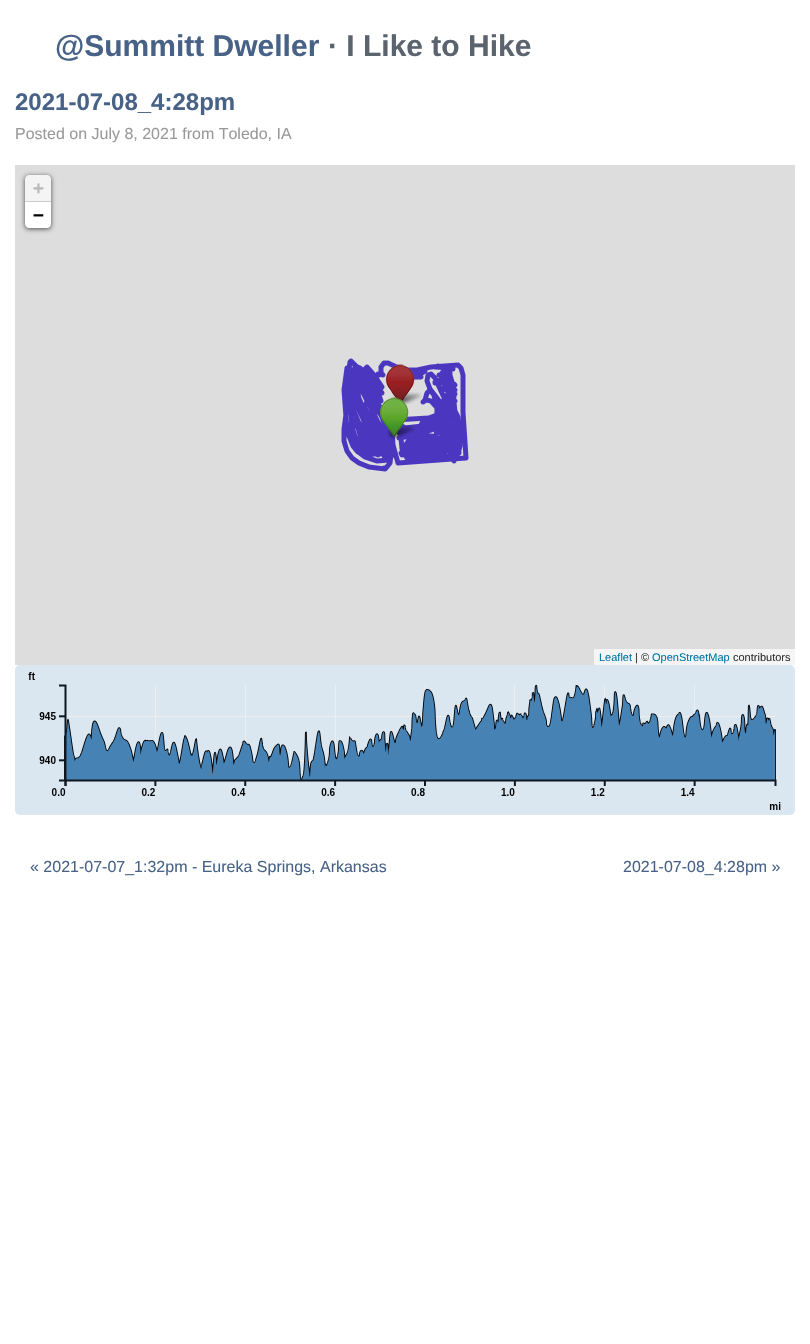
void draw(SkCanvas* canvas) {
  SkPaint paint;
  paint.setAntiAlias(true);
  auto face = [&](const char* family, int weight, float size, bool italic = false) {
    SkFontStyle style(weight, SkFontStyle::kNormal_Width,
      italic ? SkFontStyle::kItalic_Slant : SkFontStyle::kUpright_Slant);
    SkFont result(fontMgr->matchFamilyStyle(family, style), size);
    result.setSubpixel(true);
    return result;
  };
  auto paste = [&](const char* path, float x, float y, float w, float h) {
    auto image = SkImages::DeferredFromEncodedData(SkData::MakeFromFileName(path));
    canvas->drawImageRect(image, SkRect::MakeXYWH(x, y, w, h), SkSamplingOptions());
  };
  auto shape = [&](const char* data, bool evenOdd = false) {
    SkPath result = *SkParsePath::FromSVGString(data);
    if (evenOdd) result.setFillType(SkPathFillType::kEvenOdd);
    return result;
  };
  canvas->clear(0xffffffff);
  paint.setColor(0xffdddddd);
  canvas->drawRect(SkRect::MakeXYWH(15, 165, 780, 500), paint);
  paint.setColor(0xa6000000);
  paint.setMaskFilter(SkMaskFilter::MakeBlur(kNormal_SkBlurStyle, 2.5f));
  canvas->drawRoundRect(SkRect::MakeXYWH(25, 176, 26, 53), 4, 4, paint);
  paint.setMaskFilter(nullptr);
  paint.setColor(0xfff4f4f4);
  canvas->drawPath(shape("M29 175H47C49 175 51 177 51 179V202H25V179C25 177 27 175 29 175Z"), paint);
  paint.setColor(0xffcccccc);
  canvas->drawRect(SkRect::MakeXYWH(25, 201, 26, 1), paint);
  paint.setColor(0xffffffff);
  canvas->drawPath(shape("M25 202H51V224C51 226 49 228 47 228H29C27 228 25 226 25 224Z"), paint);
  paint.setColor(0xfff5f5f5);
  canvas->drawRect(SkRect::MakeXYWH(594, 649, 201, 16), paint);
  paste("img/1.png", 341, 358, 128, 114);
  paste("img/4.png", 392, 392, 30, 14);
  paste("img/2.png", 385, 364, 30, 37);
  paste("img/5.png", 386, 425, 30, 15);
  paste("img/3.png", 380, 397, 29, 40);
  paint.setColor(0xffdae6f0);
  canvas->drawRoundRect(SkRect::MakeXYWH(15, 665, 780, 150), 5, 5, paint);
  paste("img/6.png", 28, 672, 753, 138);
  auto f0 = face("Liberation Sans", 700, 30);
  paint.setColor(0xff476286);
  canvas->drawString("@Summitt Dweller", 55, 56, f0, paint);
  paint.setColor(0xff5b636e);
  canvas->drawString("· I Like to Hike", 328, 56, f0, paint);
  auto f1 = face("Liberation Sans", 700, 24);
  paint.setColor(0xff476286);
  canvas->drawString("2021-07-08_4:28pm", 15, 110, f1, paint);
  auto f2 = face("Liberation Sans", 400, 16);
  paint.setColor(0xff999999);
  canvas->drawString("Posted on July 8, 2021 from Toledo, IA", 15, 139, f2, paint);
  auto f3 = face("DejaVu Sans Mono", 700, 18);
  paint.setColor(0xffbbbbbb);
  canvas->drawString("+", 33, 194, f3, paint);
  paint.setColor(0xff000000);
  canvas->drawString("−", 33, 221, f3, paint);
  auto f4 = face("Liberation Sans", 400, 11);
  paint.setColor(0xff0078a8);
  canvas->drawString("Leaflet", 599, 661, f4, paint);
  paint.setColor(0xff333333);
  canvas->drawString("| ©", 635, 661, f4, paint);
  paint.setColor(0xff0078a8);
  canvas->drawString("OpenStreetMap", 652, 661, f4, paint);
  paint.setColor(0xff333333);
  canvas->drawString("contributors", 733, 661, f4, paint);
  paint.setColor(0xff476286);
  canvas->drawString("« 2021-07-07_1:32pm - Eureka Springs, Arkansas", 30, 872, f2, paint);
  canvas->drawString("2021-07-08_4:28pm »", 623, 872, f2, paint);
}
